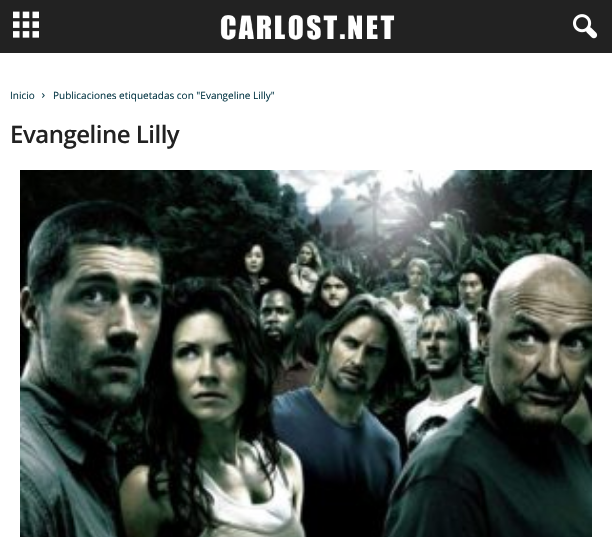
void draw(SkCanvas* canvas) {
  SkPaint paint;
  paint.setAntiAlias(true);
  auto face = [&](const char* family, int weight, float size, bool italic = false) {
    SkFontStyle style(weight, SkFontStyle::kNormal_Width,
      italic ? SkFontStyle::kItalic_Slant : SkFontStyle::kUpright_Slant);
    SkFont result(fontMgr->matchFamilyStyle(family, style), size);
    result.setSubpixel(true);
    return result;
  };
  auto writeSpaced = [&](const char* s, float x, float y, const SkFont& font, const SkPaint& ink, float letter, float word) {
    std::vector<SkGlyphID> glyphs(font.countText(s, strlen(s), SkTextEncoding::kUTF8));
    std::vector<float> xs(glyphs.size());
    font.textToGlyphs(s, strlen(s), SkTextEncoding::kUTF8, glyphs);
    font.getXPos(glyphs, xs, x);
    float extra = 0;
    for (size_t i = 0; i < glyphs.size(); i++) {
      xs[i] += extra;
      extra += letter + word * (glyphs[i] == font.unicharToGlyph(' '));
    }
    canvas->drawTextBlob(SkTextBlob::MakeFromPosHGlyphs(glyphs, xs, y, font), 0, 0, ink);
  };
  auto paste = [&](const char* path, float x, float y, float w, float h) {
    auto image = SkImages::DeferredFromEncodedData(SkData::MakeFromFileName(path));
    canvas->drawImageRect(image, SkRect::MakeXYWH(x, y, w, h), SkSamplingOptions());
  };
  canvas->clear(0xffffffff);
  paint.setColor(0xff222222);
  canvas->drawRect(SkRect::MakeXYWH(0, 0, 612, 53), paint);
  paste("img/1.png", 13, 11, 26, 27);
  paste("img/2.png", 220, 15, 175, 25);
  paste("img/3.png", 573, 14, 25, 25);
  paste("img/4.png", 42, 93, 3, 5);
  paste("img/5.png", 20, 170, 572, 367);
  auto f0 = face("Open Sans", 400, 10);
  paint.setColor(0xff033544);
  canvas->drawString("Inicio", 10, 99, f0, paint);
  canvas->drawString("Publicaciones etiquetadas con \"Evangeline Lilly\"", 53, 99, f0, paint);
  auto f1 = face("Open Sans", 600, 24);
  paint.setColor(0xff222222);
  writeSpaced("Evangeline Lilly", 10, 143, f1, paint, -0.5f, 0);
}
